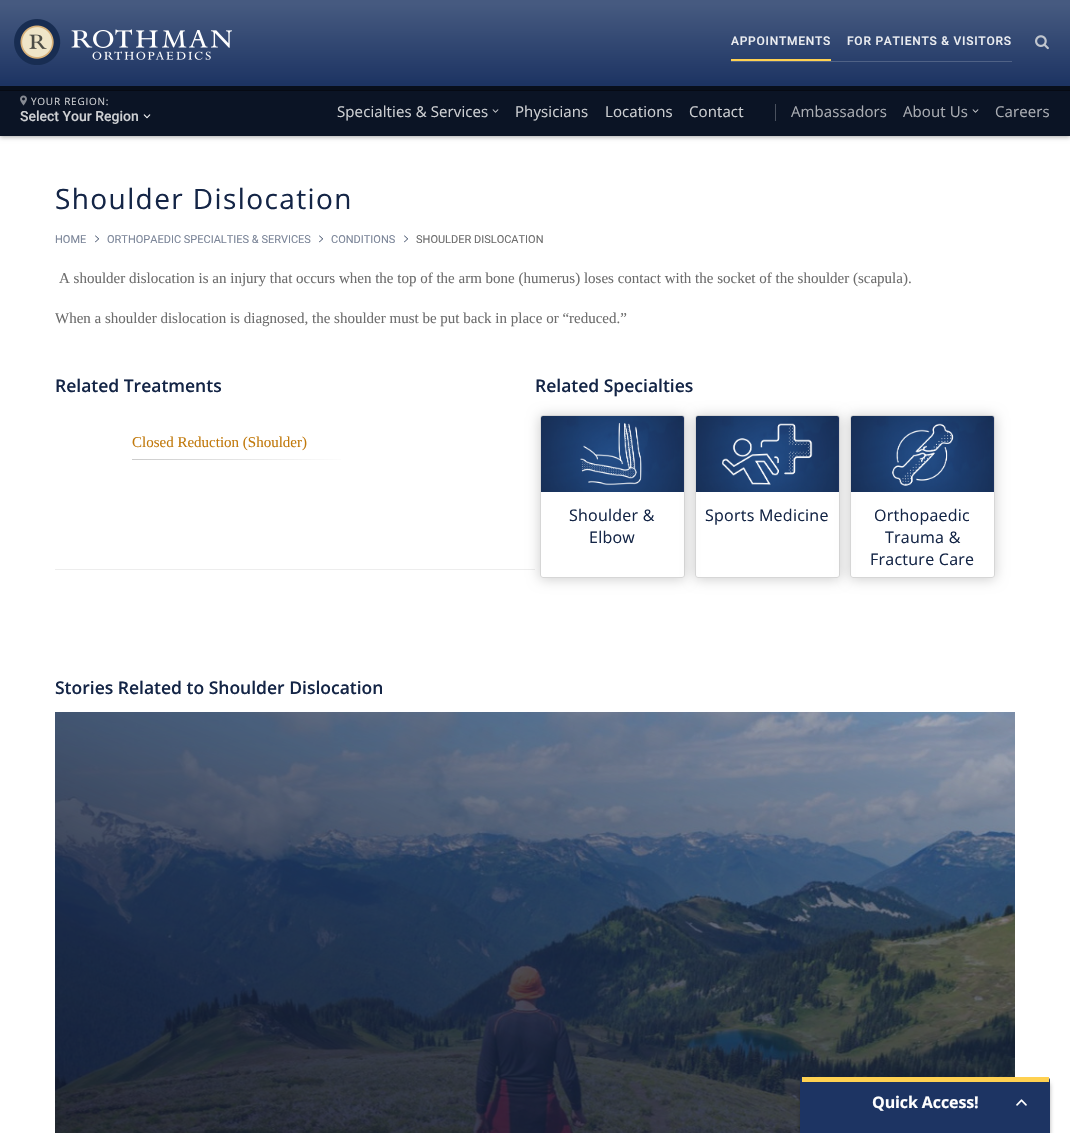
void draw(SkCanvas* canvas) {
  SkPaint paint;
  paint.setAntiAlias(true);
  auto face = [&](const char* family, int weight, float size, bool italic = false) {
    SkFontStyle style(weight, SkFontStyle::kNormal_Width,
      italic ? SkFontStyle::kItalic_Slant : SkFontStyle::kUpright_Slant);
    SkFont result(fontMgr->matchFamilyStyle(family, style), size);
    result.setSubpixel(true);
    return result;
  };
  auto writeSpaced = [&](const char* s, float x, float y, const SkFont& font, const SkPaint& ink, float letter, float word) {
    std::vector<SkGlyphID> glyphs(font.countText(s, strlen(s), SkTextEncoding::kUTF8));
    std::vector<float> xs(glyphs.size());
    font.textToGlyphs(s, strlen(s), SkTextEncoding::kUTF8, glyphs);
    font.getXPos(glyphs, xs, x);
    float extra = 0;
    for (size_t i = 0; i < glyphs.size(); i++) {
      xs[i] += extra;
      extra += letter + word * (glyphs[i] == font.unicharToGlyph(' '));
    }
    canvas->drawTextBlob(SkTextBlob::MakeFromPosHGlyphs(glyphs, xs, y, font), 0, 0, ink);
  };
  auto paste = [&](const char* path, float x, float y, float w, float h) {
    auto image = SkImages::DeferredFromEncodedData(SkData::MakeFromFileName(path));
    canvas->drawImageRect(image, SkRect::MakeXYWH(x, y, w, h), SkSamplingOptions());
  };
  auto shape = [&](const char* data, bool evenOdd = false) {
    SkPath result = *SkParsePath::FromSVGString(data);
    if (evenOdd) result.setFillType(SkPathFillType::kEvenOdd);
    return result;
  };
  canvas->clear(0xffffffff);
  paint.setColor(0x80000000);
  paint.setMaskFilter(SkMaskFilter::MakeBlur(kNormal_SkBlurStyle, 2));
  canvas->drawRect(SkRect::MakeXYWH(0, 2, 1070, 132), paint);
  paint.setMaskFilter(nullptr);
  paint.setColor(0x33000000);
  paint.setMaskFilter(SkMaskFilter::MakeBlur(kNormal_SkBlurStyle, 2));
  canvas->drawRect(SkRect::MakeXYWH(0, 88, 1070, 50), paint);
  paint.setMaskFilter(nullptr);
  {
    const SkColor colors[] = {0xff465a80, 0xff1d3463};
    const float stops[] = {0.05f, 0.98f};
    const SkPoint ends[] = {{535, 0}, {535, 86}};
    paint.setShader(SkGradientShader::MakeLinear(ends, colors, stops, 2, SkTileMode::kClamp));
    paint.setAlpha(255);
  }
  canvas->drawRect(SkRect::MakeXYWH(0, 0, 1070, 86), paint);
  paste("img/1.png", 14, 19, 218, 46);
  paint.setShader(nullptr);
  paint.setColor(0xffffd151);
  canvas->drawRect(SkRect::MakeXYWH(731, 59, 100, 2), paint);
  paint.setColor(0xff506286);
  canvas->drawRect(SkRect::MakeXYWH(731, 61, 281, 1), paint);
  paste("img/2.png", 1035, 35, 14, 15);
  {
    const struct { float x, y, w, h; SkColor color; } items[] = {
      {0, 91, 1070, 45, 0xff0b1425},
      {0, 90, 1070, 1, 0xff060a13},
      {0, 86, 1070, 4, 0xff080f1c},
    };
    for (auto [x, y, w, h, color] : items) {
      paint.setColor(color);
      canvas->drawRect(SkRect::MakeXYWH(x, y, w, h), paint);
    }
  }
  paste("img/3.png", 20, 95, 7, 11);
  paste("img/4.png", 143, 114, 8, 5);
  paste("img/5.png", 492, 109, 7, 4);
  paint.setColor(0xff4a515e);
  canvas->drawRect(SkRect::MakeXYWH(775, 104, 1, 17), paint);
  paste("img/5.png", 972, 109, 7, 4);
  paste("img/6.png", 95, 235, 4, 8);
  paste("img/6.png", 319, 235, 4, 8);
  paste("img/6.png", 404, 235, 4, 8);
  paint.setColor(0xffededed);
  canvas->drawRect(SkRect::MakeXYWH(55, 569, 480, 1), paint);
  {
    const SkColor colors[] = {0xffcccccc, 0xffffffff};
    const float stops[] = {0, 1};
    const SkPoint ends[] = {{132, 460}, {352, 460}};
    paint.setShader(SkGradientShader::MakeLinear(ends, colors, stops, 2, SkTileMode::kClamp));
    paint.setAlpha(255);
  }
  canvas->drawRect(SkRect::MakeXYWH(132, 459, 209, 1), paint);
  canvas->save();
  canvas->clipPath(shape("M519 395H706V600H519ZM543 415H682C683.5 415 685 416.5 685 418V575C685 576.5 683.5 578 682 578H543C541.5 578 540 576.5 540 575V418C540 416.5 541.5 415 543 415Z", true), true);
  paint.setShader(nullptr);
  paint.setColor(0x33000000);
  paint.setMaskFilter(SkMaskFilter::MakeBlur(kNormal_SkBlurStyle, 6.5f));
  canvas->drawRoundRect(SkRect::MakeXYWH(540, 416, 145, 163), 3, 3, paint);
  paint.setMaskFilter(nullptr);
  canvas->restore();
  paste("img/7.png", 541, 416, 143, 76);
  paint.setStroke(true);
  paint.setStrokeWidth(1);
  paint.setColor(0xffd6d6d6);
  canvas->drawRoundRect(SkRect::MakeXYWH(540.5f, 415.5f, 144, 162), 2.5f, 2.5f, paint);
  canvas->save();
  canvas->clipPath(shape("M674 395H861V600H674ZM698 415H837C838.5 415 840 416.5 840 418V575C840 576.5 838.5 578 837 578H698C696.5 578 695 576.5 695 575V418C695 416.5 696.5 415 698 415Z", true), true);
  paint.setStroke(false);
  paint.setColor(0x33000000);
  paint.setMaskFilter(SkMaskFilter::MakeBlur(kNormal_SkBlurStyle, 6.5f));
  canvas->drawRoundRect(SkRect::MakeXYWH(695, 416, 145, 163), 3, 3, paint);
  paint.setMaskFilter(nullptr);
  canvas->restore();
  paste("img/8.png", 696, 416, 143, 76);
  paint.setStroke(true);
  paint.setColor(0xffd6d6d6);
  canvas->drawRoundRect(SkRect::MakeXYWH(695.5f, 415.5f, 144, 162), 2.5f, 2.5f, paint);
  canvas->save();
  canvas->clipPath(shape("M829 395H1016V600H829ZM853 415H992C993.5 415 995 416.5 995 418V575C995 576.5 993.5 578 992 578H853C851.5 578 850 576.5 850 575V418C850 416.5 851.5 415 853 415Z", true), true);
  paint.setStroke(false);
  paint.setColor(0x33000000);
  paint.setMaskFilter(SkMaskFilter::MakeBlur(kNormal_SkBlurStyle, 6.5f));
  canvas->drawRoundRect(SkRect::MakeXYWH(850, 416, 145, 163), 3, 3, paint);
  paint.setMaskFilter(nullptr);
  canvas->restore();
  paste("img/9.png", 851, 416, 143, 76);
  paint.setStroke(true);
  paint.setColor(0xffd6d6d6);
  canvas->drawRoundRect(SkRect::MakeXYWH(850.5f, 415.5f, 144, 162), 2.5f, 2.5f, paint);
  paint.setStroke(false);
  paint.setColor(0xff142546);
  canvas->drawRect(SkRect::MakeXYWH(55, 712, 960, 421), paint);
  paste("img/10.png", 55, 712, 960, 421);
  {
    const SkColor colors[] = {0xdb090d23, 0xbd18243e, 0x0018243e};
    const float stops[] = {0, 0.48f, 1};
    const SkPoint ends[] = {{361, 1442}, {709, 587}};
    paint.setShader(SkGradientShader::MakeLinear(ends, colors, stops, 3, SkTileMode::kClamp));
    paint.setAlpha(255);
  }
  canvas->drawRect(SkRect::MakeXYWH(55, 712, 960, 421), paint);
  paint.setShader(nullptr);
  paint.setColor(0x4d000000);
  paint.setMaskFilter(SkMaskFilter::MakeBlur(kNormal_SkBlurStyle, 2));
  canvas->drawRoundRect(SkRect::MakeXYWH(800, 1083, 250, 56), 3, 3, paint);
  paint.setMaskFilter(nullptr);
  paint.setColor(0xff1d3463);
  canvas->drawPath(shape("M803 1077H1047C1048.5 1077 1050 1078.5 1050 1080V1133H800V1080C800 1078.5 801.5 1077 803 1077Z"), paint);
  paint.setColor(0xffffd151);
  canvas->drawRect(SkRect::MakeXYWH(802, 1077, 247, 5), paint);
  paste("img/11.png", 1016, 1099, 11, 7);
  auto f0 = face("Roboto", 500, 12);
  paint.setColor(0xffebedf1);
  writeSpaced("APPOINTMENTS", 731, 45, f0, paint, 0.75f, 0);
  writeSpaced("FOR PATIENTS & VISITORS", 847, 45, f0, paint, 0.75f, 0);
  auto f1 = face("Open Sans", 400, 10);
  paint.setColor(0xffced0d3);
  writeSpaced("YOUR REGION:", 31, 105, f1, paint, 0.75f, 0);
  auto f2 = face("Roboto", 500, 14);
  canvas->drawString("Select Your Region", 20, 121, f2, paint);
  auto f3 = face("Open Sans", 400, 15);
  {
    const struct { const char* s; float x, y; } items[] = {
      {"Specialties & Services", 337, 117},
      {"Physicians", 515, 117},
      {"Locations", 605, 117},
      {"Contact", 689, 117},
    };
    for (auto [s, x, y] : items) {
      writeSpaced(s, x, y, f3, paint, 0.1f, 0);
    }
  }
  paint.setColor(0xffaaadb3);
  {
    const struct { const char* s; float x, y; } items[] = {
      {"Ambassadors", 791, 117},
      {"About Us", 903, 117},
      {"Careers", 995, 117},
    };
    for (auto [s, x, y] : items) {
      writeSpaced(s, x, y, f3, paint, 0.1f, 0);
    }
  }
  auto f4 = face("Open Sans", 400, 28);
  paint.setColor(0xff142546);
  writeSpaced("Shoulder Dislocation", 55, 209, f4, paint, 1.4f, 0);
  auto f5 = face("Roboto", 400, 11);
  paint.setColor(0xff7c8699);
  {
    const struct { const char* s; float x, y; } items[] = {
      {"HOME", 55, 243},
      {"ORTHOPAEDIC SPECIALTIES & SERVICES", 107, 243},
      {"CONDITIONS", 331, 243},
    };
    for (auto [s, x, y] : items) {
      canvas->drawString(s, x, y, f5, paint);
    }
  }
  paint.setColor(0xff6d6d6d);
  canvas->drawString("SHOULDER DISLOCATION", 416, 243, f5, paint);
  auto f6 = face("Liberation Serif", 400, 15);
  canvas->drawString("A shoulder dislocation is an injury that occurs when the top of the arm bone (humerus) loses contact with the socket of the shoulder (scapula).", 59, 283, f6, paint);
  canvas->drawString("When a shoulder dislocation is diagnosed, the shoulder must be put back in place or “reduced.”", 55, 323, f6, paint);
  auto f7 = face("Open Sans", 600, 17.5f);
  paint.setColor(0xff142546);
  canvas->drawString("Related Treatments", 55, 392, f7, paint);
  paint.setColor(0xffc1790b);
  canvas->drawString("Closed Reduction (Shoulder)", 132, 447, f6, paint);
  paint.setColor(0xff142546);
  canvas->drawString("Related Specialties", 535, 392, f7, paint);
  auto f8 = face("Open Sans", 400, 16);
  {
    const struct { const char* s; float x, y; } items[] = {
      {"Shoulder &", 569, 521},
      {"Elbow", 589, 543},
      {"Sports Medicine", 705, 521},
      {"Orthopaedic", 874, 521},
      {"Trauma &", 885, 543},
      {"Fracture Care", 870, 565},
    };
    for (auto [s, x, y] : items) {
      writeSpaced(s, x, y, f8, paint, 0.25f, 0);
    }
  }
  canvas->drawString("Stories Related to Shoulder Dislocation", 55, 694, f7, paint);
  auto f9 = face("Open Sans", 700, 16);
  paint.setColor(0xffffffff);
  writeSpaced("Quick Access!", 872, 1108, f9, paint, -0.1f, 0);
}
